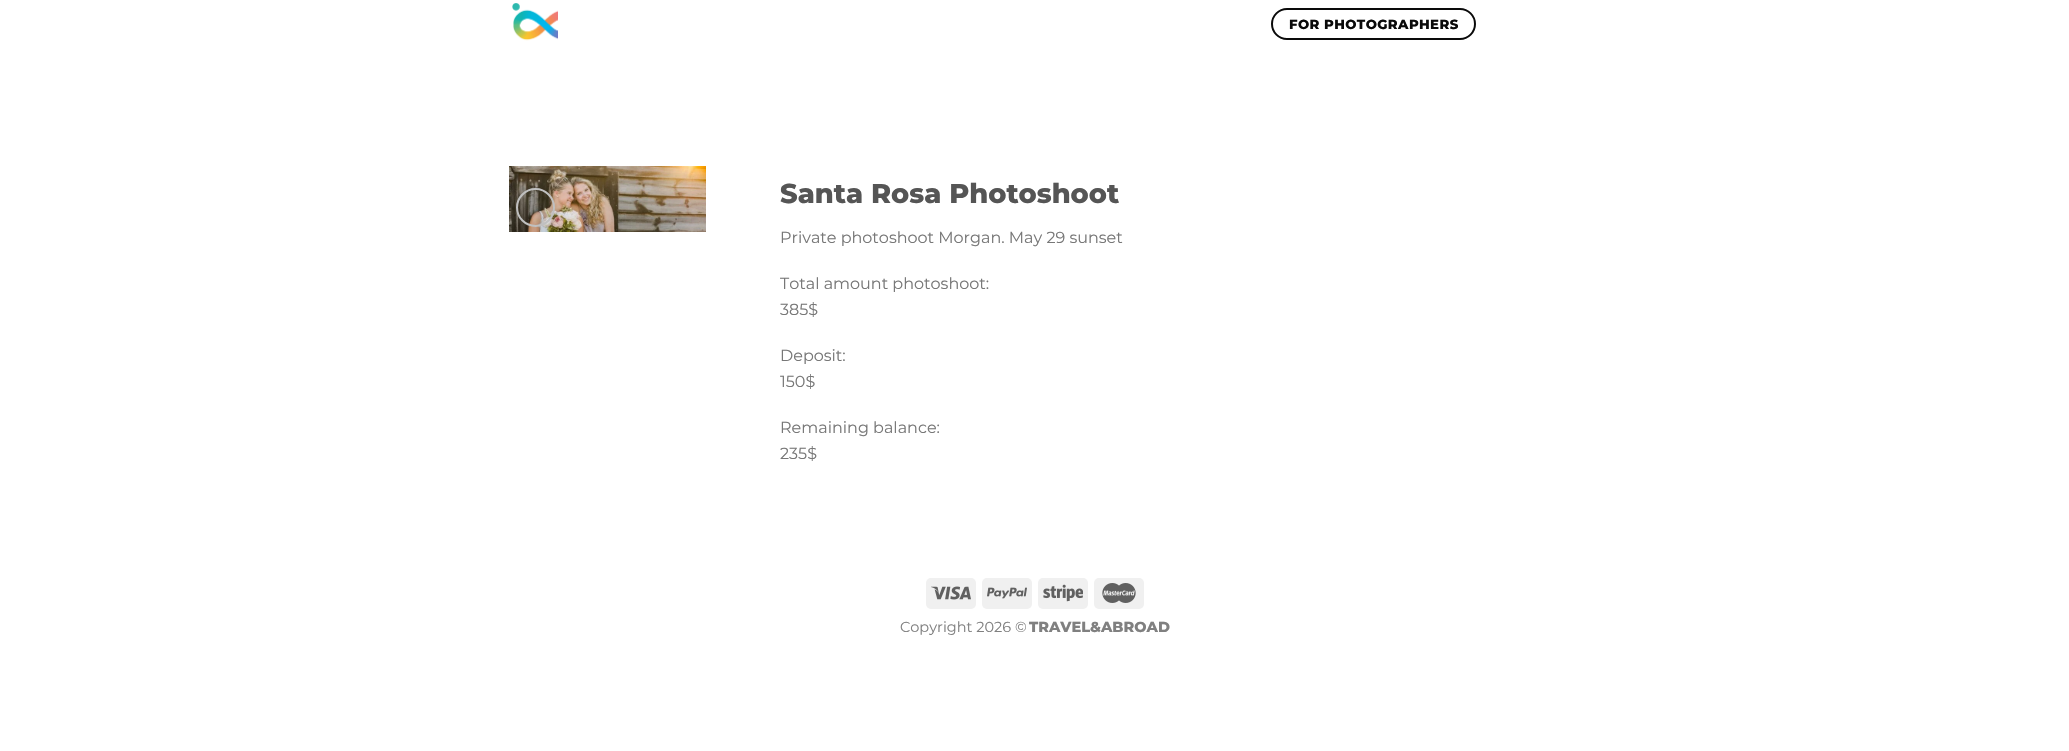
void draw(SkCanvas* canvas) {
  SkPaint paint;
  paint.setAntiAlias(true);
  auto face = [&](const char* family, int weight, float size, bool italic = false) {
    SkFontStyle style(weight, SkFontStyle::kNormal_Width,
      italic ? SkFontStyle::kItalic_Slant : SkFontStyle::kUpright_Slant);
    SkFont result(fontMgr->matchFamilyStyle(family, style), size);
    result.setSubpixel(true);
    return result;
  };
  auto writeSpaced = [&](const char* s, float x, float y, const SkFont& font, const SkPaint& ink, float letter, float word) {
    std::vector<SkGlyphID> glyphs(font.countText(s, strlen(s), SkTextEncoding::kUTF8));
    std::vector<float> xs(glyphs.size());
    font.textToGlyphs(s, strlen(s), SkTextEncoding::kUTF8, glyphs);
    font.getXPos(glyphs, xs, x);
    float extra = 0;
    for (size_t i = 0; i < glyphs.size(); i++) {
      xs[i] += extra;
      extra += letter + word * (glyphs[i] == font.unicharToGlyph(' '));
    }
    canvas->drawTextBlob(SkTextBlob::MakeFromPosHGlyphs(glyphs, xs, y, font), 0, 0, ink);
  };
  auto paste = [&](const char* path, float x, float y, float w, float h) {
    auto image = SkImages::DeferredFromEncodedData(SkData::MakeFromFileName(path));
    canvas->drawImageRect(image, SkRect::MakeXYWH(x, y, w, h), SkSamplingOptions());
  };
  canvas->clear(0xffffffff);
  paste("img/1.png", 512, 3, 46, 38);
  paint.setStroke(true);
  paint.setStrokeWidth(2);
  paint.setColor(0xff0a0a0a);
  canvas->drawRoundRect(SkRect::MakeXYWH(1272, 9, 203, 30), 15, 15, paint);
  paste("img/2.png", 509, 166, 197, 66);
  paint.setColor(0xffc0c0c0);
  canvas->drawCircle(535.5f, 207.5f, 18.5f, paint);
  paint.setStroke(false);
  paint.setColor(0xfff0f0f0);
  canvas->drawRoundRect(SkRect::MakeXYWH(926, 578, 50, 31), 5, 5, paint);
  paste("img/3.png", 931, 586, 40, 14);
  canvas->drawRoundRect(SkRect::MakeXYWH(982, 578, 50, 31), 5, 5, paint);
  paste("img/4.png", 987, 587, 40, 12);
  canvas->drawRoundRect(SkRect::MakeXYWH(1038, 578, 50, 31), 5, 5, paint);
  paste("img/5.png", 1043, 584, 40, 18);
  canvas->drawRoundRect(SkRect::MakeXYWH(1094, 578, 50, 31), 5, 5, paint);
  paste("img/6.png", 1102, 583, 34, 20);
  auto f0 = face("Montserrat", 800, 13.25f);
  paint.setColor(0xff0a0a0a);
  writeSpaced("FOR PHOTOGRAPHERS", 1289, 29, f0, paint, 0.4f, 0);
  auto f1 = face("Montserrat", 800, 27.25f);
  paint.setColor(0xff555555);
  canvas->drawString("Santa Rosa Photoshoot", 780, 203, f1, paint);
  auto f2 = face("Montserrat", 400, 16);
  paint.setColor(0xff777777);
  {
    const struct { const char* s; float x, y; } items[] = {
      {"Private photoshoot Morgan. May 29 sunset", 780, 243},
      {"Total amount photoshoot:", 780, 289},
      {"385$", 780, 315},
      {"Deposit:", 780, 361},
      {"150$", 780, 387},
      {"Remaining balance:", 780, 433},
      {"235$", 780, 459},
    };
    for (auto [s, x, y] : items) {
      canvas->drawString(s, x, y, f2, paint);
    }
  }
  auto f3 = face("Montserrat", 400, 14.5f);
  paint.setColor(0xff808080);
  canvas->drawString("Copyright 2026 ©", 900, 632, f3, paint);
  auto f4 = face("Montserrat", 800, 14.5f);
  canvas->drawString("TRAVEL&ABROAD", 1029, 632, f4, paint);
}
